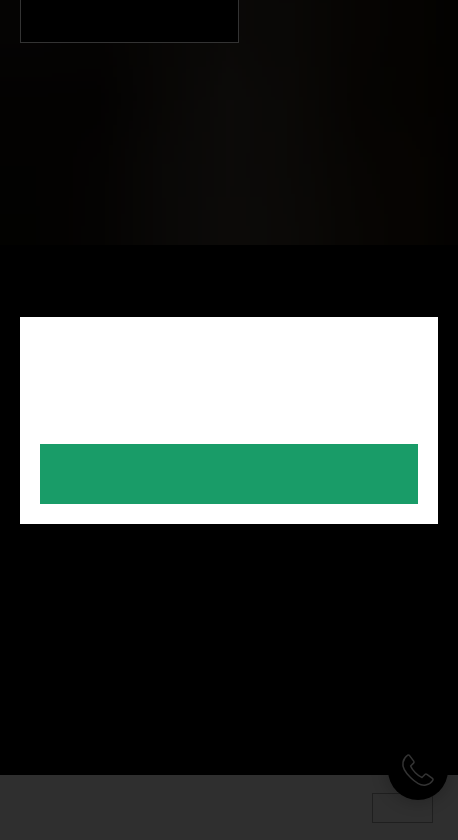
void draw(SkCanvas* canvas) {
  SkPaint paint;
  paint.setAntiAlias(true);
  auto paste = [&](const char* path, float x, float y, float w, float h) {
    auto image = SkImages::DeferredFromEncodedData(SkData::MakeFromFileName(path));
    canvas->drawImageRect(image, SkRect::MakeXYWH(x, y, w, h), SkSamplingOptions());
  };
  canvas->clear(0xff000000);
  paste("img/1.png", 0, 0, 458, 245);
  {
    const SkColor colors[] = {0xb3000000, 0x99000000};
    const float stops[] = {0, 1};
    const SkPoint ends[] = {{229, -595}, {229, 245}};
    paint.setShader(SkGradientShader::MakeLinear(ends, colors, stops, 2, SkTileMode::kClamp));
    paint.setAlpha(255);
  }
  canvas->drawRect(SkRect::MakeXYWH(0, 0, 458, 245), paint);
  paint.setShader(nullptr);
  paint.setColor(0xff000000);
  canvas->drawRect(SkRect::MakeXYWH(20.5f, -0.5f, 218, 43), paint);
  paint.setStroke(true);
  paint.setStrokeWidth(1);
  paint.setColor(0xff333333);
  canvas->drawRect(SkRect::MakeXYWH(20.5f, -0.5f, 218, 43), paint);
  paint.setStroke(false);
  {
    const struct { float x, y, w, h; SkColor color; } items[] = {
      {20, 317, 418, 207, 0xffffffff},
      {40, 444, 378, 60, 0xff199c68},
      {0, 775, 458, 65, 0xff2f2f2f},
    };
    for (auto [x, y, w, h, color] : items) {
      paint.setColor(color);
      canvas->drawRect(SkRect::MakeXYWH(x, y, w, h), paint);
    }
  }
  paint.setStroke(true);
  paint.setColor(0xff1f1f1f);
  canvas->drawRect(SkRect::MakeXYWH(372.5f, 793.5f, 60, 29), paint);
  paint.setStroke(false);
  paint.setColor(0x4d000000);
  paint.setMaskFilter(SkMaskFilter::MakeBlur(kNormal_SkBlurStyle, 10));
  canvas->drawRoundRect(SkRect::MakeXYWH(388, 740, 60, 60), 30, 30, paint);
  paint.setMaskFilter(nullptr);
  paint.setColor(0xff000000);
  canvas->drawCircle(418, 770, 30, paint);
  paste("img/2.png", 402, 754, 32, 32);
}
